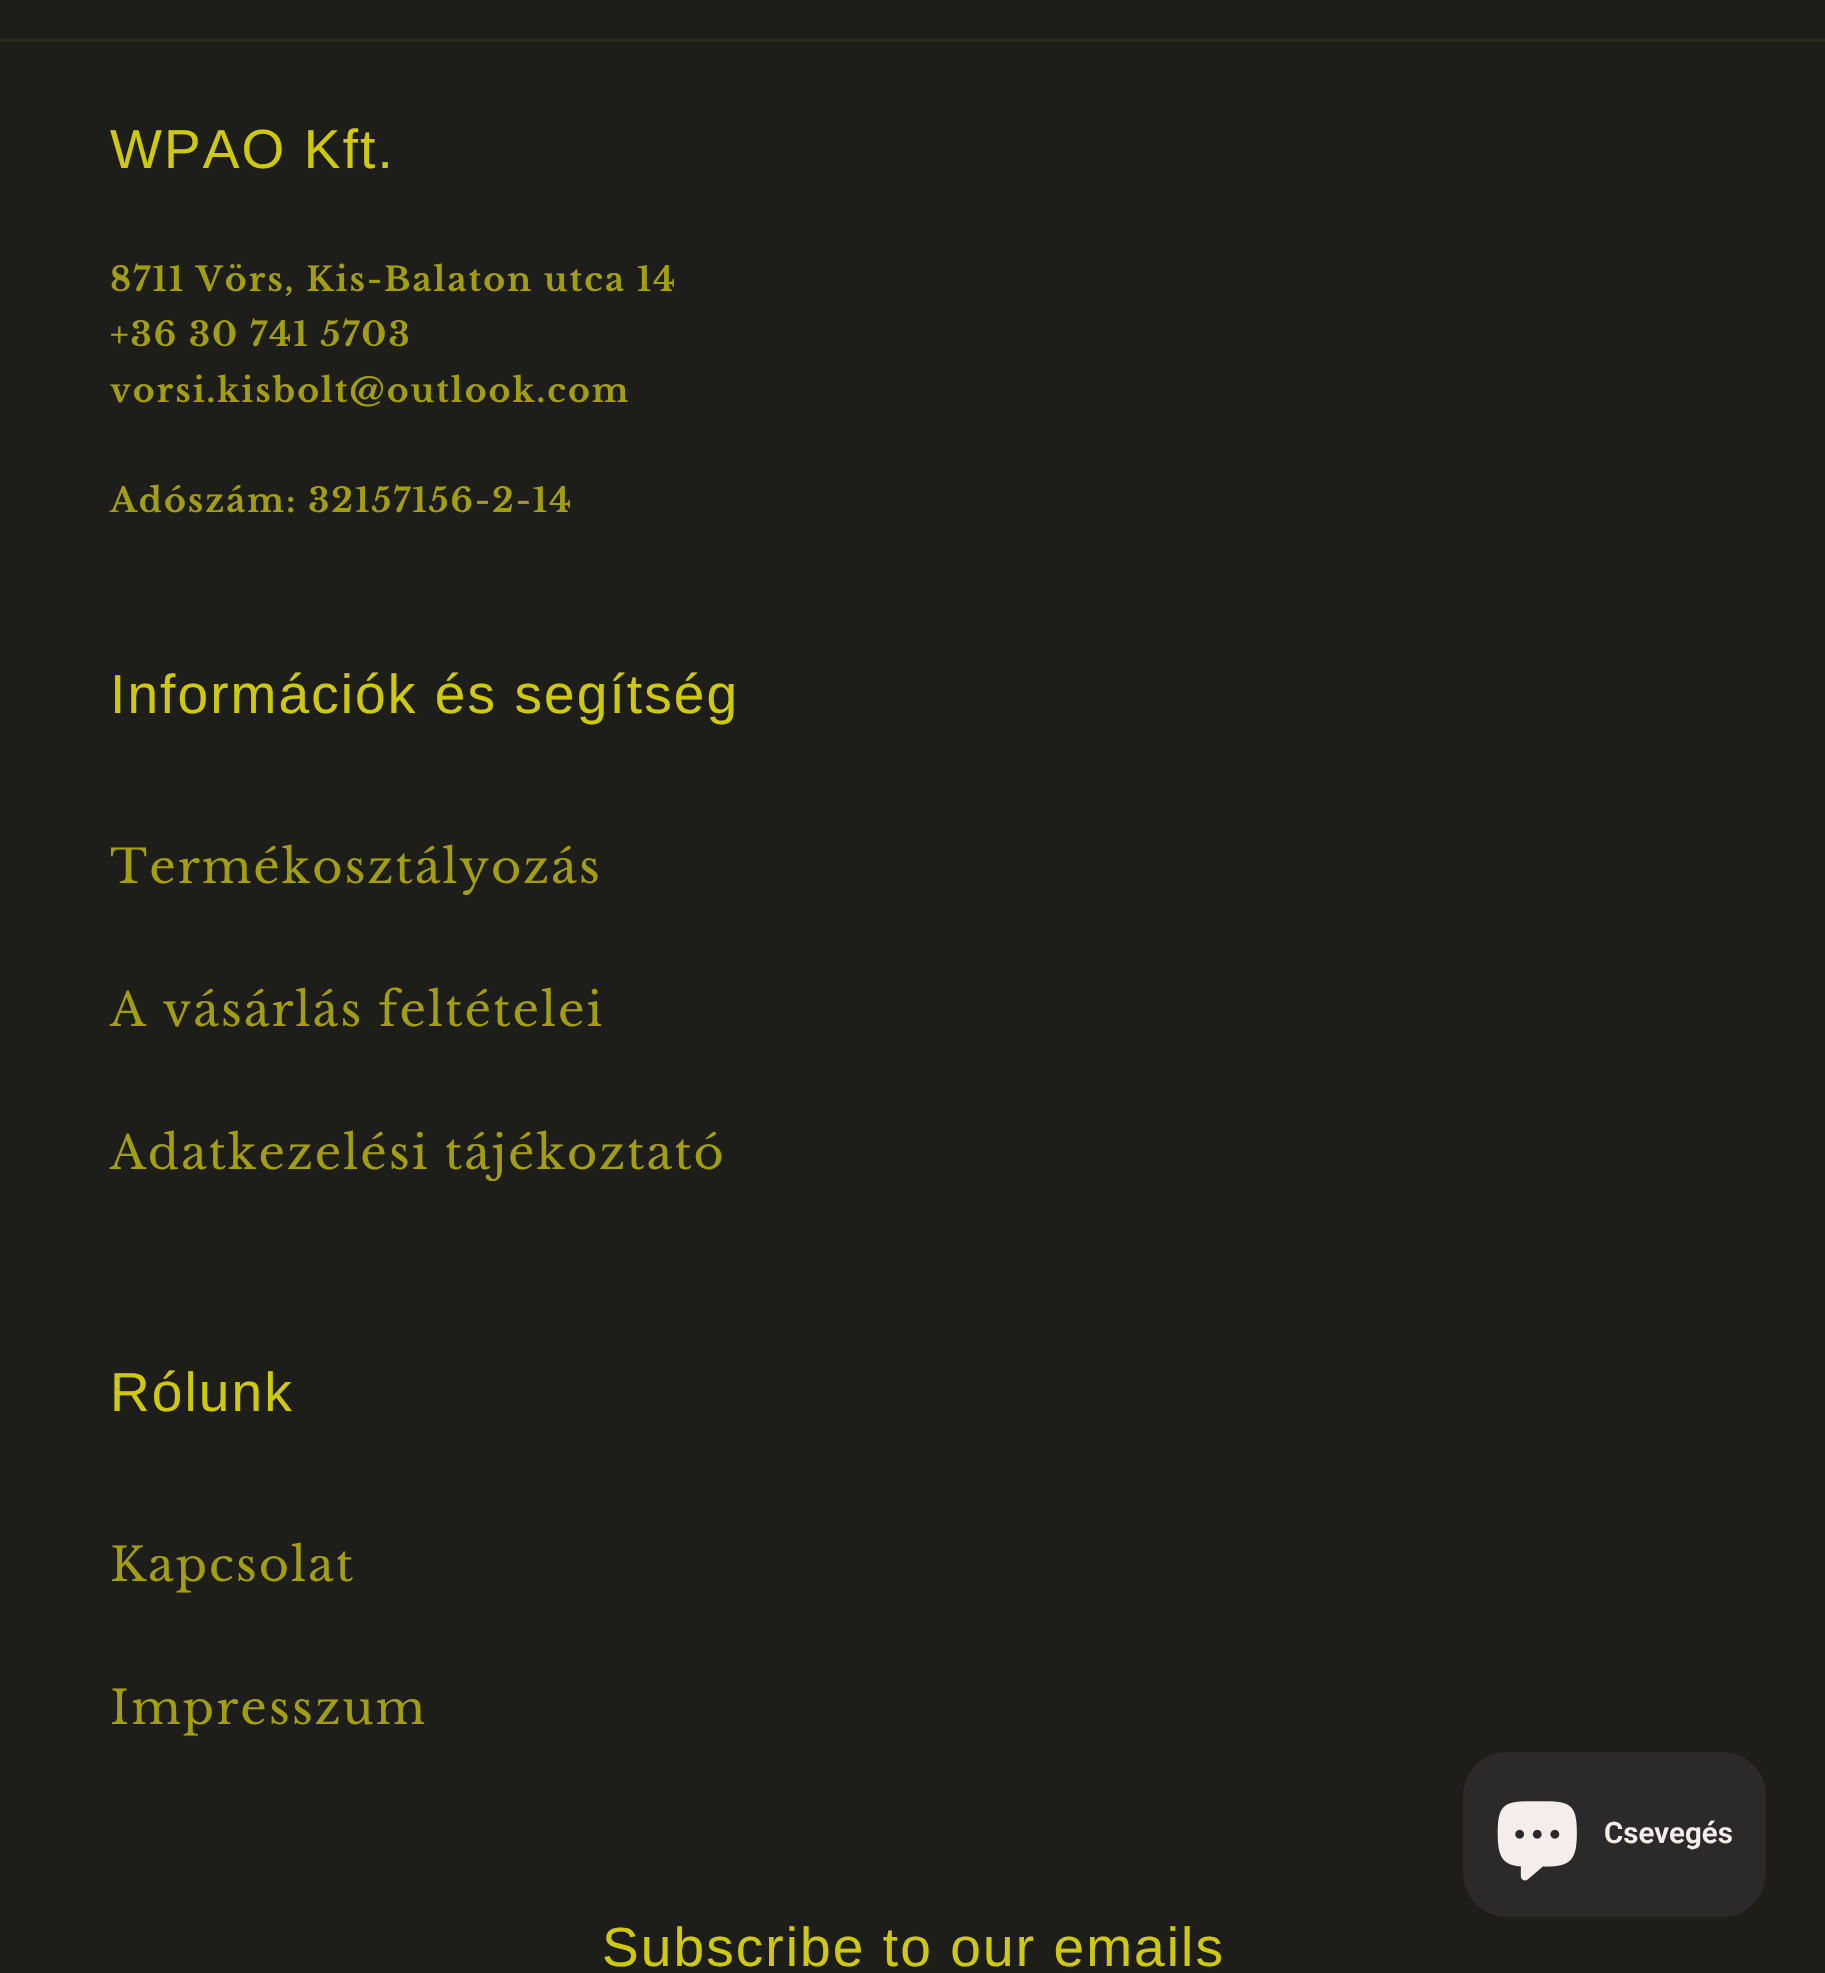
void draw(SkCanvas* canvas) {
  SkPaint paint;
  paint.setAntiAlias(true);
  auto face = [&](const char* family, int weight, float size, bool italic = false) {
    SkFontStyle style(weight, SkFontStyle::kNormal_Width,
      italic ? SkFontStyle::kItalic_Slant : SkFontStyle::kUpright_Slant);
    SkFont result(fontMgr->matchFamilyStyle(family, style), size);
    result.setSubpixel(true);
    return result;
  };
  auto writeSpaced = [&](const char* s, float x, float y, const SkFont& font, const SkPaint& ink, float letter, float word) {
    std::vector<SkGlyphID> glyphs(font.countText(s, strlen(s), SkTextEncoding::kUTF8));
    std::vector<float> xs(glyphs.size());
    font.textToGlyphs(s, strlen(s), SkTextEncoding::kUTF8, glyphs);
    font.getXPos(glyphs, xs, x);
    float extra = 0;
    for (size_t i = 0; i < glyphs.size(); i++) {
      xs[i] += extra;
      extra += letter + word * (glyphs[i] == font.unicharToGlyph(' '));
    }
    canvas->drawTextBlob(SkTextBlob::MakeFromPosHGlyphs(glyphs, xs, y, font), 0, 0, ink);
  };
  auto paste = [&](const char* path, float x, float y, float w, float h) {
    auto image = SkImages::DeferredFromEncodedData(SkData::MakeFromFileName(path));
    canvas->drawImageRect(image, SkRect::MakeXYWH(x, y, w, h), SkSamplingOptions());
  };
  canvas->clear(0xff1d1d1a);
  paint.setColor(0xff2b2b19);
  canvas->drawRect(SkRect::MakeXYWH(0, 39, 1825, 3), paint);
  paint.setColor(0xff2b2929);
  canvas->drawRoundRect(SkRect::MakeXYWH(1463, 1752, 303, 165), 44, 44, paint);
  paste("img/1.png", 1497, 1801, 80, 80);
  auto f0 = face("Liberation Sans", 400, 55);
  paint.setColor(0xffcec80e);
  writeSpaced("WPAO Kft.", 110, 168, f0, paint, 2.1f, 0);
  auto f1 = face("Libre Baskerville", 700, 33.2f);
  paint.setColor(0xffa29d11);
  {
    const struct { const char* s; float x, y; } items[] = {
      {"8711 Vörs, Kis-Balaton utca 14", 110, 291},
      {"+36 30 741 5703", 110, 346},
      {"vorsi.kisbolt@outlook.com", 110, 402},
      {"Adószám: 32157156-2-14", 110, 512},
    };
    for (auto [s, x, y] : items) {
      writeSpaced(s, x, y, f1, paint, 2, 0);
    }
  }
  paint.setColor(0xffcec80e);
  writeSpaced("Információk és segítség", 110, 713, f0, paint, 2.1f, 0);
  auto f2 = face("Libre Baskerville", 400, 46.25f);
  paint.setColor(0xffa29d11);
  {
    const struct { const char* s; float x, y; } items[] = {
      {"Termékosztályozás", 110, 883},
      {"A vásárlás feltételei", 110, 1026},
      {"Adatkezelési tájékoztató", 110, 1169},
    };
    for (auto [s, x, y] : items) {
      writeSpaced(s, x, y, f2, paint, 2, 0);
    }
  }
  paint.setColor(0xffcec80e);
  writeSpaced("Rólunk", 110, 1411, f0, paint, 2.1f, 0);
  paint.setColor(0xffa29d11);
  writeSpaced("Kapcsolat", 110, 1581, f2, paint, 2, 0);
  writeSpaced("Impresszum", 110, 1724, f2, paint, 2, 0);
  paint.setColor(0xffcec80e);
  writeSpaced("Subscribe to our emails", 602, 1966, f0, paint, 2.1f, 0);
  auto f3 = face("Roboto", 600, 29.5f);
  paint.setColor(0xfff5ecec);
  canvas->drawString("Csevegés", 1604, 1843, f3, paint);
}
